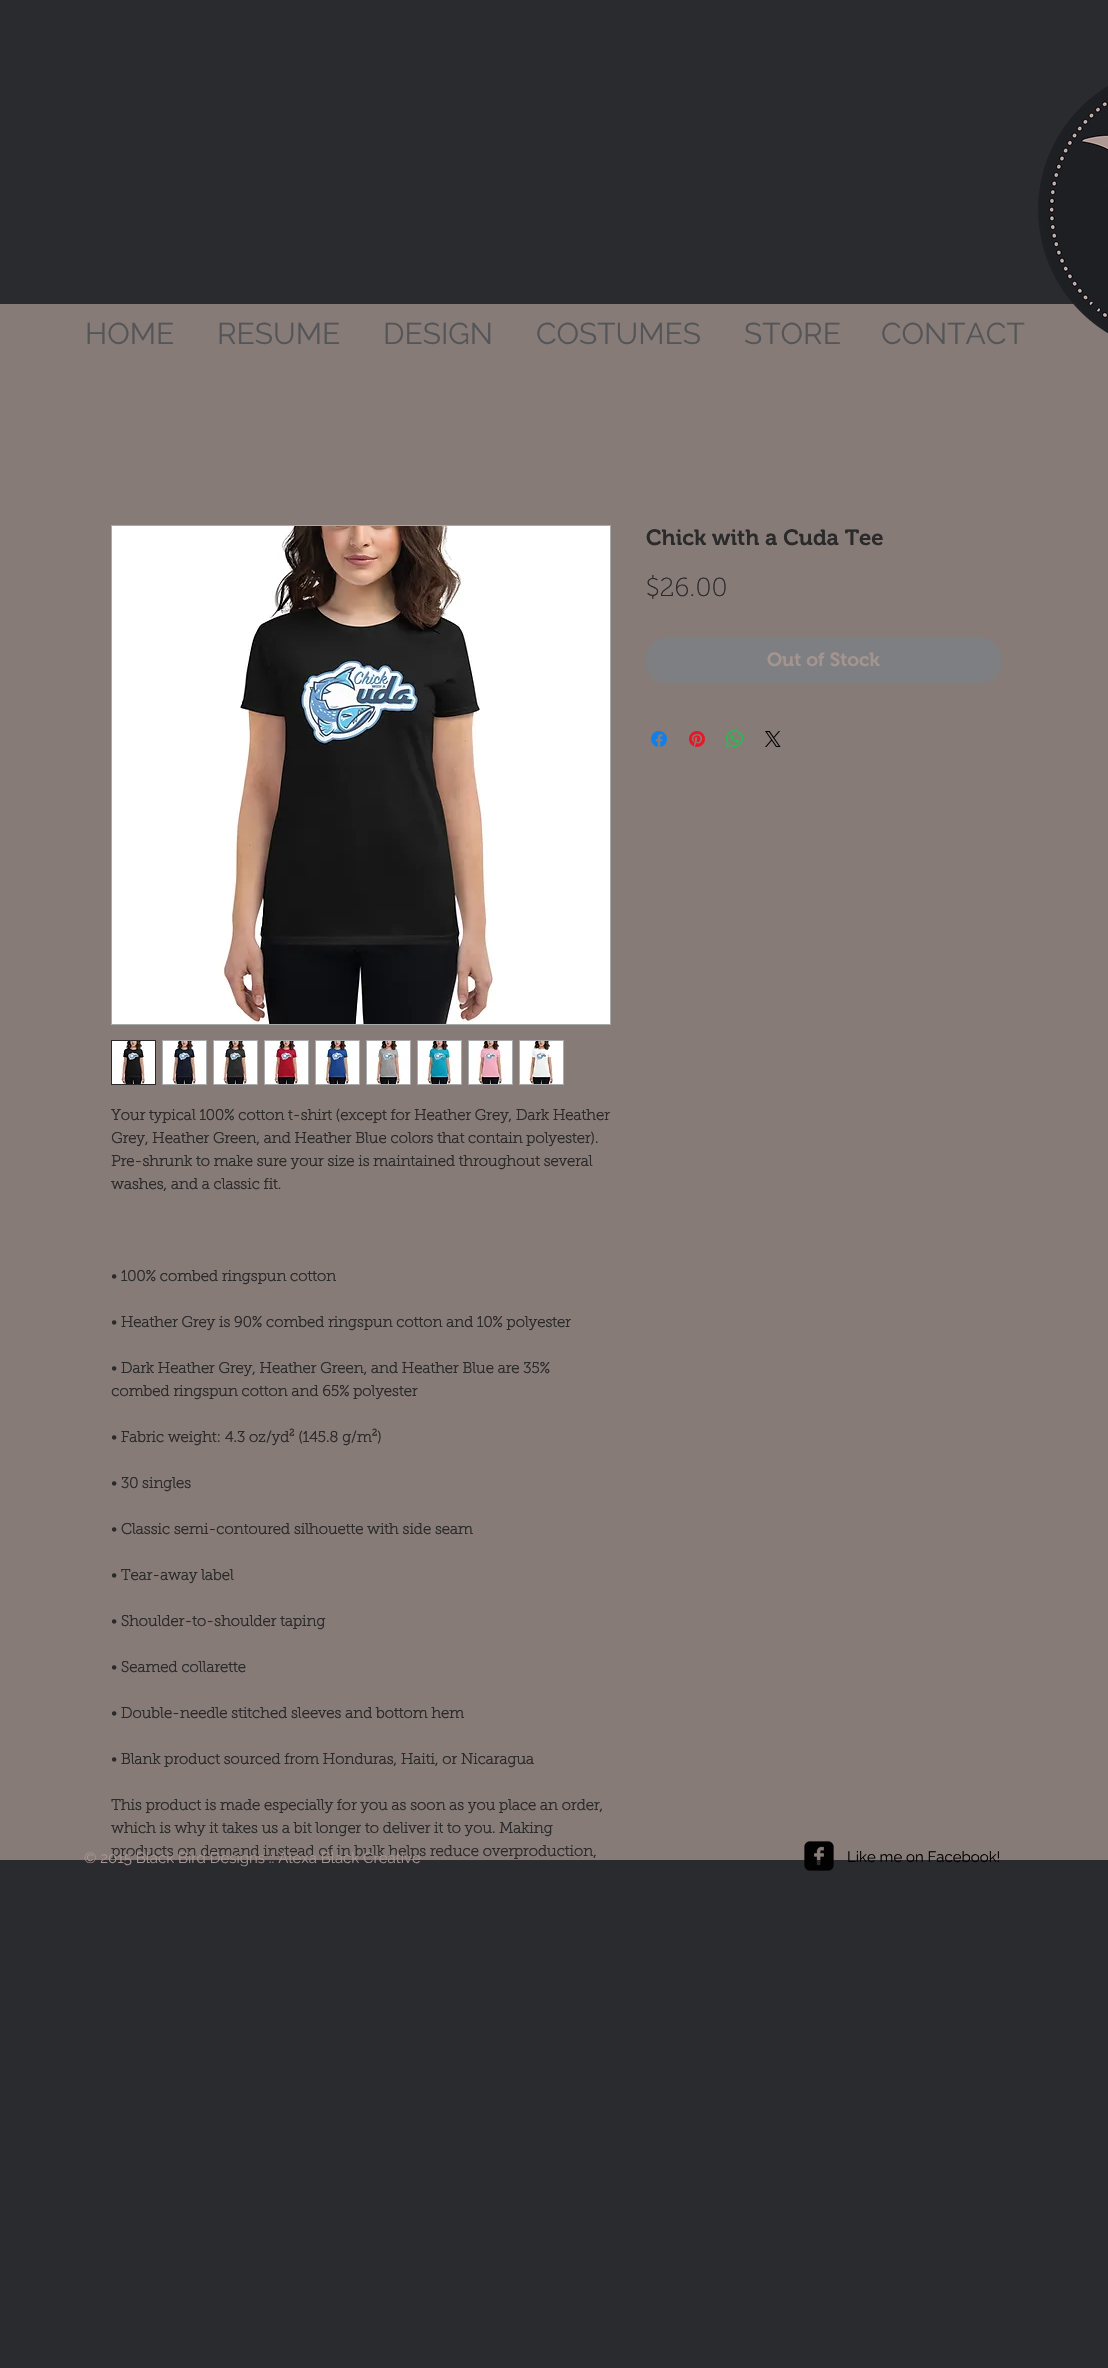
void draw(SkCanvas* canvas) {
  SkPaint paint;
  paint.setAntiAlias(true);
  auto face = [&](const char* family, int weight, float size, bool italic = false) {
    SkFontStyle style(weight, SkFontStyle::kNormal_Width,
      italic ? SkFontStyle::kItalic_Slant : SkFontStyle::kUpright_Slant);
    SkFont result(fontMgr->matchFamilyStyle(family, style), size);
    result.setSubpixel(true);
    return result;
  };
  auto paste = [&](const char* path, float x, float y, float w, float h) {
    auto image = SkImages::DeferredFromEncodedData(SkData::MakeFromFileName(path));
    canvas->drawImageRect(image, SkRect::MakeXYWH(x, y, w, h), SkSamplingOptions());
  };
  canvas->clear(0xff2a2b2e);
  paint.setColor(0xff877b77);
  canvas->drawRect(SkRect::MakeXYWH(0, 304, 1108, 1556), paint);
  paste("img/1.png", 1038, 86, 70, 248);
  paint.setColor(0xff7e7f82);
  canvas->drawRoundRect(SkRect::MakeXYWH(646, 638, 355, 45), 20, 20, paint);
  paste("img/2.png", 651, 731, 16, 16);
  paste("img/3.png", 689, 731, 16, 16);
  paste("img/4.png", 726, 730, 17, 17);
  paste("img/5.png", 765, 731, 16, 16);
  paint.setStroke(true);
  paint.setStrokeWidth(1);
  paint.setColor(0xffa9aaac);
  canvas->drawRect(SkRect::MakeXYWH(111.5f, 525.5f, 499, 499), paint);
  paste("img/6.png", 112, 526, 498, 498);
  paint.setColor(0xff2a2a2b);
  canvas->drawRect(SkRect::MakeXYWH(111.5f, 1040.5f, 44, 44), paint);
  paste("img/7.png", 112, 1041, 43, 43);
  paint.setStroke(false);
  paint.setColor(0xffa9aaac);
  canvas->drawRect(SkRect::MakeXYWH(162, 1040, 45, 45), paint);
  paste("img/8.png", 163, 1041, 43, 43);
  canvas->drawRect(SkRect::MakeXYWH(213, 1040, 45, 45), paint);
  paste("img/9.png", 214, 1041, 43, 43);
  canvas->drawRect(SkRect::MakeXYWH(264, 1040, 45, 45), paint);
  paste("img/10.png", 265, 1041, 43, 43);
  canvas->drawRect(SkRect::MakeXYWH(315, 1040, 45, 45), paint);
  paste("img/11.png", 316, 1041, 43, 43);
  canvas->drawRect(SkRect::MakeXYWH(366, 1040, 45, 45), paint);
  paste("img/12.png", 367, 1041, 43, 43);
  canvas->drawRect(SkRect::MakeXYWH(417, 1040, 45, 45), paint);
  paste("img/13.png", 418, 1041, 43, 43);
  canvas->drawRect(SkRect::MakeXYWH(468, 1040, 45, 45), paint);
  paste("img/14.png", 469, 1041, 43, 43);
  canvas->drawRect(SkRect::MakeXYWH(519, 1040, 45, 45), paint);
  paste("img/15.png", 520, 1041, 43, 43);
  paste("img/16.png", 804, 1841, 30, 30);
  auto f0 = face("Raleway", 400, 30);
  paint.setColor(0xff545558);
  {
    const struct { const char* s; float x, y; } items[] = {
      {"HOME", 85, 344},
      {"RESUME", 217, 344},
      {"DESIGN", 383, 344},
      {"COSTUMES", 536, 344},
      {"STORE", 744, 344},
      {"CONTACT", 881, 344},
    };
    for (auto [s, x, y] : items) {
      canvas->drawString(s, x, y, f0, paint);
    }
  }
  auto f1 = face("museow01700", 600, 22);
  paint.setColor(0xff2a2a2b);
  canvas->drawString("Chick with a Cuda Tee", 646, 545, f1, paint);
  auto f2 = face("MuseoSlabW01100", 100, 26);
  canvas->drawString("$26.00", 646, 596, f2, paint);
  auto f3 = face("museow01700", 600, 19);
  paint.setColor(0xffa6958f);
  canvas->drawString("Out of Stock", 767, 666, f3, paint);
  auto f4 = face("MuseoSlabW01100", 700, 15);
  paint.setColor(0xff2a2a2b);
  {
    const struct { const char* s; float x, y; } items[] = {
      {"Your typical 100% cotton t-shirt (except for Heather Grey, Dark Heather", 111, 1120},
      {"Grey, Heather Green, and Heather Blue colors that contain polyester).", 111, 1143},
      {"Pre-shrunk to make sure your size is maintained throughout several", 111, 1166},
      {"washes, and a classic fit.", 111, 1189},
      {"• 100% combed ringspun cotton", 111, 1281},
      {"• Heather Grey is 90% combed ringspun cotton and 10% polyester", 111, 1327},
      {"• Dark Heather Grey, Heather Green, and Heather Blue are 35%", 111, 1373},
      {"combed ringspun cotton and 65% polyester", 111, 1396},
      {"• Fabric weight: 4.3 oz/yd² (145.8 g/m²)", 111, 1442},
      {"• 30 singles", 111, 1488},
      {"• Classic semi-contoured silhouette with side seam", 111, 1534},
      {"• Tear-away label", 111, 1580},
      {"• Shoulder-to-shoulder taping", 111, 1626},
      {"• Seamed collarette", 111, 1672},
      {"• Double-needle stitched sleeves and bottom hem", 111, 1718},
      {"• Blank product sourced from Honduras, Haiti, or Nicaragua", 111, 1764},
      {"This product is made especially for you as soon as you place an order,", 111, 1810},
      {"which is why it takes us a bit longer to deliver it to you. Making", 111, 1833},
      {"products on demand instead of in bulk helps reduce overproduction,", 111, 1856},
    };
    for (auto [s, x, y] : items) {
      canvas->drawString(s, x, y, f4, paint);
    }
  }
  auto f5 = face("Raleway", 400, 15);
  paint.setColor(0xffa6958f);
  canvas->drawString("© 2015 Black Bird Designs :: Alexa Black Creative", 84, 1863, f5, paint);
  paint.setColor(0xff010101);
  canvas->drawString("Like me on Facebook!", 847, 1862, f5, paint);
}
